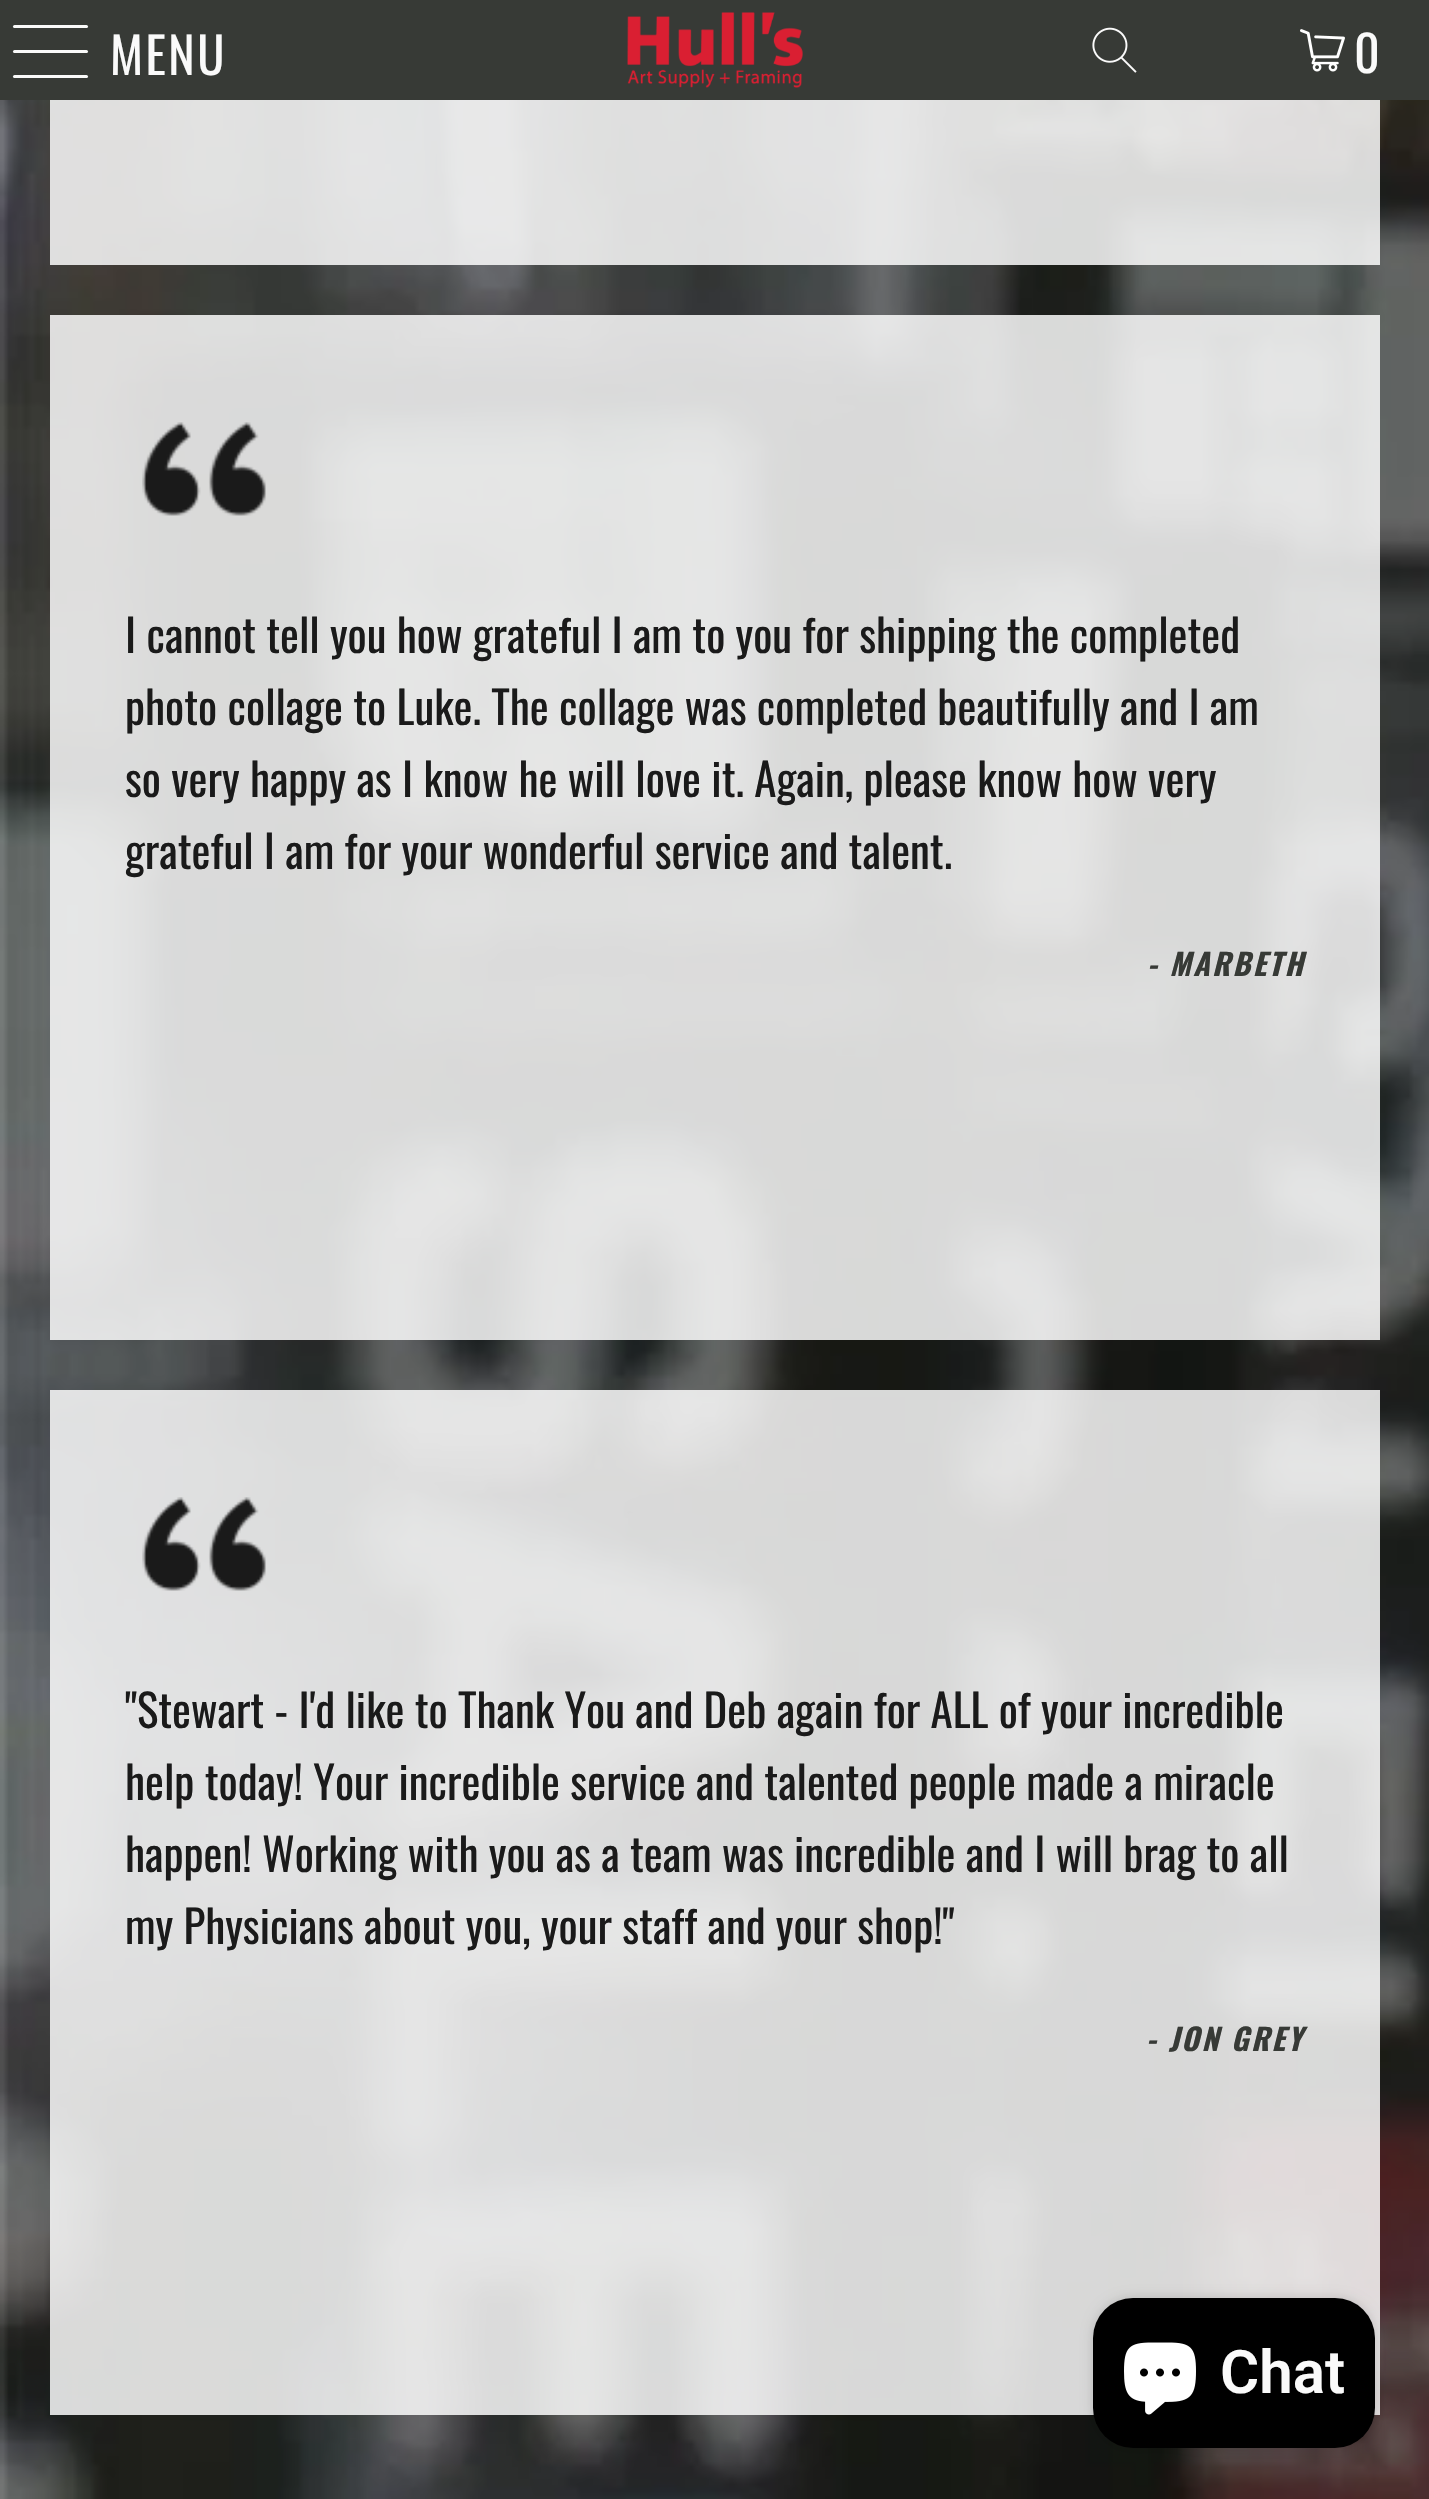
void draw(SkCanvas* canvas) {
  SkPaint paint;
  paint.setAntiAlias(true);
  auto face = [&](const char* family, int weight, float size, bool italic = false) {
    SkFontStyle style(weight, SkFontStyle::kNormal_Width,
      italic ? SkFontStyle::kItalic_Slant : SkFontStyle::kUpright_Slant);
    SkFont result(fontMgr->matchFamilyStyle(family, style), size);
    result.setSubpixel(true);
    return result;
  };
  auto writeSpaced = [&](const char* s, float x, float y, const SkFont& font, const SkPaint& ink, float letter, float word) {
    std::vector<SkGlyphID> glyphs(font.countText(s, strlen(s), SkTextEncoding::kUTF8));
    std::vector<float> xs(glyphs.size());
    font.textToGlyphs(s, strlen(s), SkTextEncoding::kUTF8, glyphs);
    font.getXPos(glyphs, xs, x);
    float extra = 0;
    for (size_t i = 0; i < glyphs.size(); i++) {
      xs[i] += extra;
      extra += letter + word * (glyphs[i] == font.unicharToGlyph(' '));
    }
    canvas->drawTextBlob(SkTextBlob::MakeFromPosHGlyphs(glyphs, xs, y, font), 0, 0, ink);
  };
  auto paste = [&](const char* path, float x, float y, float w, float h) {
    auto image = SkImages::DeferredFromEncodedData(SkData::MakeFromFileName(path));
    canvas->drawImageRect(image, SkRect::MakeXYWH(x, y, w, h), SkSamplingOptions());
  };
  canvas->clear(0xffffffff);
  paint.setColor(0xff373a36);
  canvas->drawRect(SkRect::MakeXYWH(0, 0, 1429, 100), paint);
  paint.setColor(0xfffafafa);
  canvas->drawRoundRect(SkRect::MakeXYWH(13, 25, 75, 3), 1.5f, 1.5f, paint);
  canvas->drawRoundRect(SkRect::MakeXYWH(13, 50, 75, 3), 1.5f, 1.5f, paint);
  canvas->drawRoundRect(SkRect::MakeXYWH(13, 75, 75, 3), 1.5f, 1.5f, paint);
  paste("img/1.png", 627, 12, 176, 76);
  paste("img/2.png", 1092, 27, 45, 46);
  paste("img/3.png", 1300, 29, 45, 43);
  paste("img/4.png", 0, 100, 1429, 2399);
  paint.setColor(0xd4ffffff);
  canvas->drawRect(SkRect::MakeXYWH(50, 100, 1330, 165), paint);
  canvas->drawRect(SkRect::MakeXYWH(50, 315, 1330, 1025), paint);
  paste("img/5.png", 142, 422, 124, 94);
  canvas->drawRect(SkRect::MakeXYWH(50, 1390, 1330, 1025), paint);
  paste("img/6.png", 142, 1497, 124, 94);
  paint.setColor(0x26000000);
  paint.setMaskFilter(SkMaskFilter::MakeBlur(kNormal_SkBlurStyle, 6));
  canvas->drawRoundRect(SkRect::MakeXYWH(1093, 2298, 282, 150), 40, 40, paint);
  paint.setMaskFilter(nullptr);
  paint.setColor(0xff000000);
  canvas->drawRoundRect(SkRect::MakeXYWH(1093, 2298, 282, 150), 40, 40, paint);
  paste("img/7.png", 1124, 2342, 72, 73);
  auto f0 = face("Oswald", 400, 50);
  paint.setColor(0xfffafafa);
  writeSpaced("MENU", 110, 75, f0, paint, 2.5f, 0);
  canvas->drawString("0", 1354, 73, f0, paint);
  auto f1 = face("Oswald", 400, 45);
  paint.setColor(0xff1a1a1a);
  {
    const struct { const char* s; float x, y; } items[] = {
      {"I cannot tell you how grateful I am to you for shipping the completed", 125, 653},
      {"photo collage to Luke. The collage was completed beautifully and I am", 125, 725},
      {"so very happy as I know he will love it. Again, please know how very", 125, 797},
      {"grateful I am for your wonderful service and talent.", 125, 869},
    };
    for (auto [s, x, y] : items) {
      canvas->drawString(s, x, y, f1, paint);
    }
  }
  auto f2 = face("Oswald", 700, 30, true);
  paint.setColor(0xff373a36);
  writeSpaced("- MARBETH", 1147, 976, f2, paint, 2.5f, 0);
  paint.setColor(0xff1a1a1a);
  {
    const struct { const char* s; float x, y; } items[] = {
      {"\"Stewart - I'd like to Thank You and Deb again for ALL of your incredible", 125, 1728},
      {"help today! Your incredible service and talented people made a miracle", 125, 1800},
      {"happen! Working with you as a team was incredible and I will brag to all", 125, 1872},
      {"my Physicians about you, your staff and your shop!\"", 125, 1944},
    };
    for (auto [s, x, y] : items) {
      canvas->drawString(s, x, y, f1, paint);
    }
  }
  paint.setColor(0xff373a36);
  writeSpaced("- JON GREY", 1146, 2051, f2, paint, 2.5f, 0);
  auto f3 = face("Roboto", 600, 60);
  paint.setColor(0xfffafafa);
  canvas->drawString("Chat", 1220, 2393, f3, paint);
}
